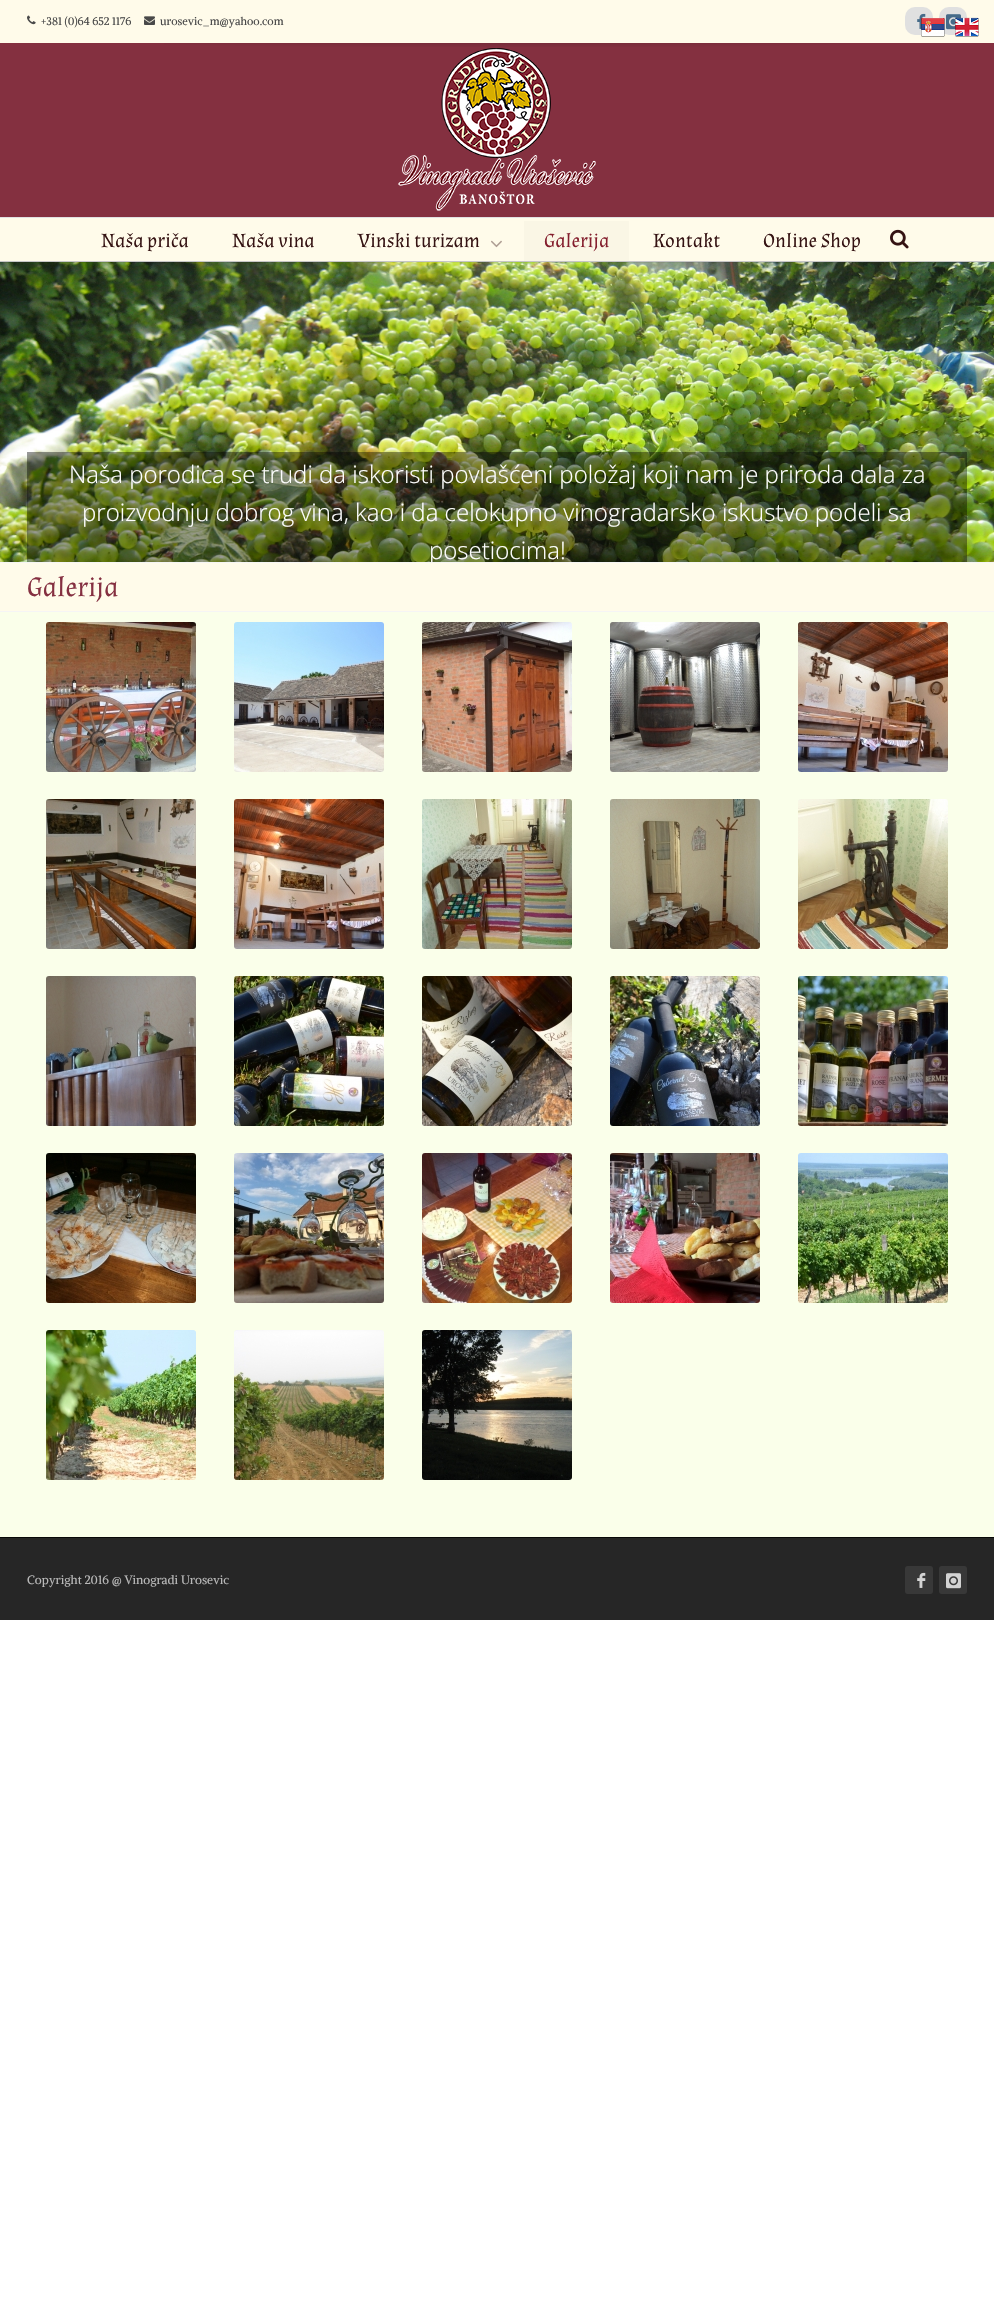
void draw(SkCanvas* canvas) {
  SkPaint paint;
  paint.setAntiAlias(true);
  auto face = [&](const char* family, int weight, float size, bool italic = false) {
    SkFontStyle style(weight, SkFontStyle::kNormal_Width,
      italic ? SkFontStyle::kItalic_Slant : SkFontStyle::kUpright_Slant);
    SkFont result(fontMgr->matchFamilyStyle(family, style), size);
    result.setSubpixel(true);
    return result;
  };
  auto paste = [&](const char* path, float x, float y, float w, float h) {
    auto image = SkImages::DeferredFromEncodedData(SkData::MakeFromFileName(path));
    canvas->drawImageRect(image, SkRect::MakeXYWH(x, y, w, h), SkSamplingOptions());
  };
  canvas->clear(0xffffffff);
  paint.setColor(0xfffffbea);
  canvas->drawRect(SkRect::MakeXYWH(0, 0, 994, 43), paint);
  paste("img/1.png", 27, 15, 9, 10);
  paste("img/2.png", 144, 16, 11, 9);
  paint.setColor(0xffe0e0e0);
  canvas->drawRoundRect(SkRect::MakeXYWH(905, 7, 28, 28), 10, 10, paint);
  paste("img/3.png", 917, 13, 9, 16);
  canvas->drawRoundRect(SkRect::MakeXYWH(939, 7, 28, 28), 10, 10, paint);
  paste("img/4.png", 946, 14, 15, 16);
  paint.setColor(0xff843040);
  canvas->drawRect(SkRect::MakeXYWH(0, 43, 994, 174), paint);
  {
    const SkColor colors[] = {0x26000000, 0x00000000};
    const float stops[] = {0, 0.65f};
    SkMatrix m = SkMatrix::Translate(507, 40).preScale(703, 13);
    paint.setShader(SkGradientShader::MakeRadial({0, 0}, 1, colors, stops, 2, SkTileMode::kClamp, 0, &m));
    paint.setAlpha(255);
  }
  canvas->drawRect(SkRect::MakeXYWH(164, 43, 686, 4), paint);
  paint.setShader(nullptr);
  paint.setColor(0xffe1e1e1);
  canvas->drawRect(SkRect::MakeXYWH(0, 217, 994, 1), paint);
  paste("img/5.png", 398, 48, 198, 163);
  paint.setColor(0xfffffbea);
  canvas->drawRect(SkRect::MakeXYWH(0, 218, 994, 43), paint);
  paint.setColor(0xffc6c6c6);
  canvas->drawRect(SkRect::MakeXYWH(0, 261, 994, 1), paint);
  paste("img/6.png", 491, 240, 11, 8);
  paint.setColor(0xfffaf6e5);
  canvas->drawRect(SkRect::MakeXYWH(524, 221, 105, 40), paint);
  paste("img/7.png", 890, 229, 19, 20);
  paste("img/8.png", 0, 262, 994, 300);
  {
    const struct { float x, y, w, h; SkColor color; } items[] = {
      {0, 262, 994, 1, 0x0d000000},
      {27, 452, 940, 110, 0x66000000},
      {0, 563, 994, 48, 0xfffffbea},
      {0, 562, 994, 1, 0xfff5f5f5},
      {0, 611, 994, 1, 0xfff5f5f5},
      {0, 612, 994, 925, 0xfffaffea},
    };
    for (auto [x, y, w, h, color] : items) {
      paint.setColor(color);
      canvas->drawRect(SkRect::MakeXYWH(x, y, w, h), paint);
    }
  }
  paste("img/9.png", 46, 622, 150, 150);
  paste("img/10.png", 234, 622, 150, 150);
  paste("img/11.png", 422, 622, 150, 150);
  paste("img/12.png", 610, 622, 150, 150);
  paste("img/13.png", 798, 622, 150, 150);
  paste("img/14.png", 46, 799, 150, 150);
  paste("img/15.png", 234, 799, 150, 150);
  paste("img/16.png", 422, 799, 150, 150);
  paste("img/17.png", 610, 799, 150, 150);
  paste("img/18.png", 798, 799, 150, 150);
  paste("img/19.png", 46, 976, 150, 150);
  paste("img/20.png", 234, 976, 150, 150);
  paste("img/21.png", 422, 976, 150, 150);
  paste("img/22.png", 610, 976, 150, 150);
  paste("img/23.png", 798, 976, 150, 150);
  paste("img/24.png", 46, 1153, 150, 150);
  paste("img/25.png", 234, 1153, 150, 150);
  paste("img/26.png", 422, 1153, 150, 150);
  paste("img/27.png", 610, 1153, 150, 150);
  paste("img/28.png", 798, 1153, 150, 150);
  paste("img/29.png", 46, 1330, 150, 150);
  paste("img/30.png", 234, 1330, 150, 150);
  paste("img/31.png", 422, 1330, 150, 150);
  paint.setColor(0xff262626);
  canvas->drawRect(SkRect::MakeXYWH(0, 1538, 994, 82), paint);
  paint.setColor(0xff080808);
  canvas->drawRect(SkRect::MakeXYWH(0, 1537, 994, 1), paint);
  paint.setColor(0xff383838);
  canvas->drawRoundRect(SkRect::MakeXYWH(905, 1566, 28, 28), 3, 3, paint);
  paste("img/32.png", 917, 1572, 9, 16);
  canvas->drawRoundRect(SkRect::MakeXYWH(939, 1566, 28, 28), 3, 3, paint);
  paste("img/33.png", 946, 1573, 15, 16);
  paste("img/34.png", 921, 18, 24, 19);
  paste("img/35.png", 955, 17, 24, 20);
  auto f0 = face("Alike", 400, 11);
  paint.setColor(0xff494949);
  canvas->drawString("+381 (0)64 652 1176", 41, 25, f0, paint);
  canvas->drawString("urosevic_m@yahoo.com", 160, 25, f0, paint);
  auto f1 = face("Almendra", 400, 20);
  paint.setColor(0xff351313);
  {
    const struct { const char* s; float x, y; } items[] = {
      {"Naša priča", 101, 247},
      {"Naša vina", 232, 247},
      {"Vinski turizam", 358, 247},
    };
    for (auto [s, x, y] : items) {
      canvas->drawString(s, x, y, f1, paint);
    }
  }
  paint.setColor(0xff841e2d);
  canvas->drawString("Galerija", 544, 247, f1, paint);
  paint.setColor(0xff351313);
  canvas->drawString("Kontakt", 653, 247, f1, paint);
  canvas->drawString("Online Shop", 763, 247, f1, paint);
  auto f2 = face("Open Sans", 300, 24);
  paint.setColor(0xffffffff);
  canvas->drawString("Naša porodica se trudi da iskoristi povlašćeni položaj koji nam je priroda dala za", 69, 483, f2, paint);
  canvas->drawString("proizvodnju dobrog vina, kao i da celokupno vinogradarsko iskustvo podeli sa", 82, 521, f2, paint);
  canvas->save();
  canvas->clipRect(SkRect::MakeXYWH(0, 262, 994, 300));
  canvas->drawString("posetiocima!", 429, 559, f2, paint);
  canvas->restore();
  auto f3 = face("Almendra", 400, 28);
  paint.setColor(0xff853041);
  canvas->drawString("Galerija", 27, 596, f3, paint);
  auto f4 = face("Alike", 400, 12);
  paint.setColor(0xffb8b8b8);
  canvas->drawString("Copyright 2016 @ Vinogradi Urosevic", 27, 1584, f4, paint);
}
